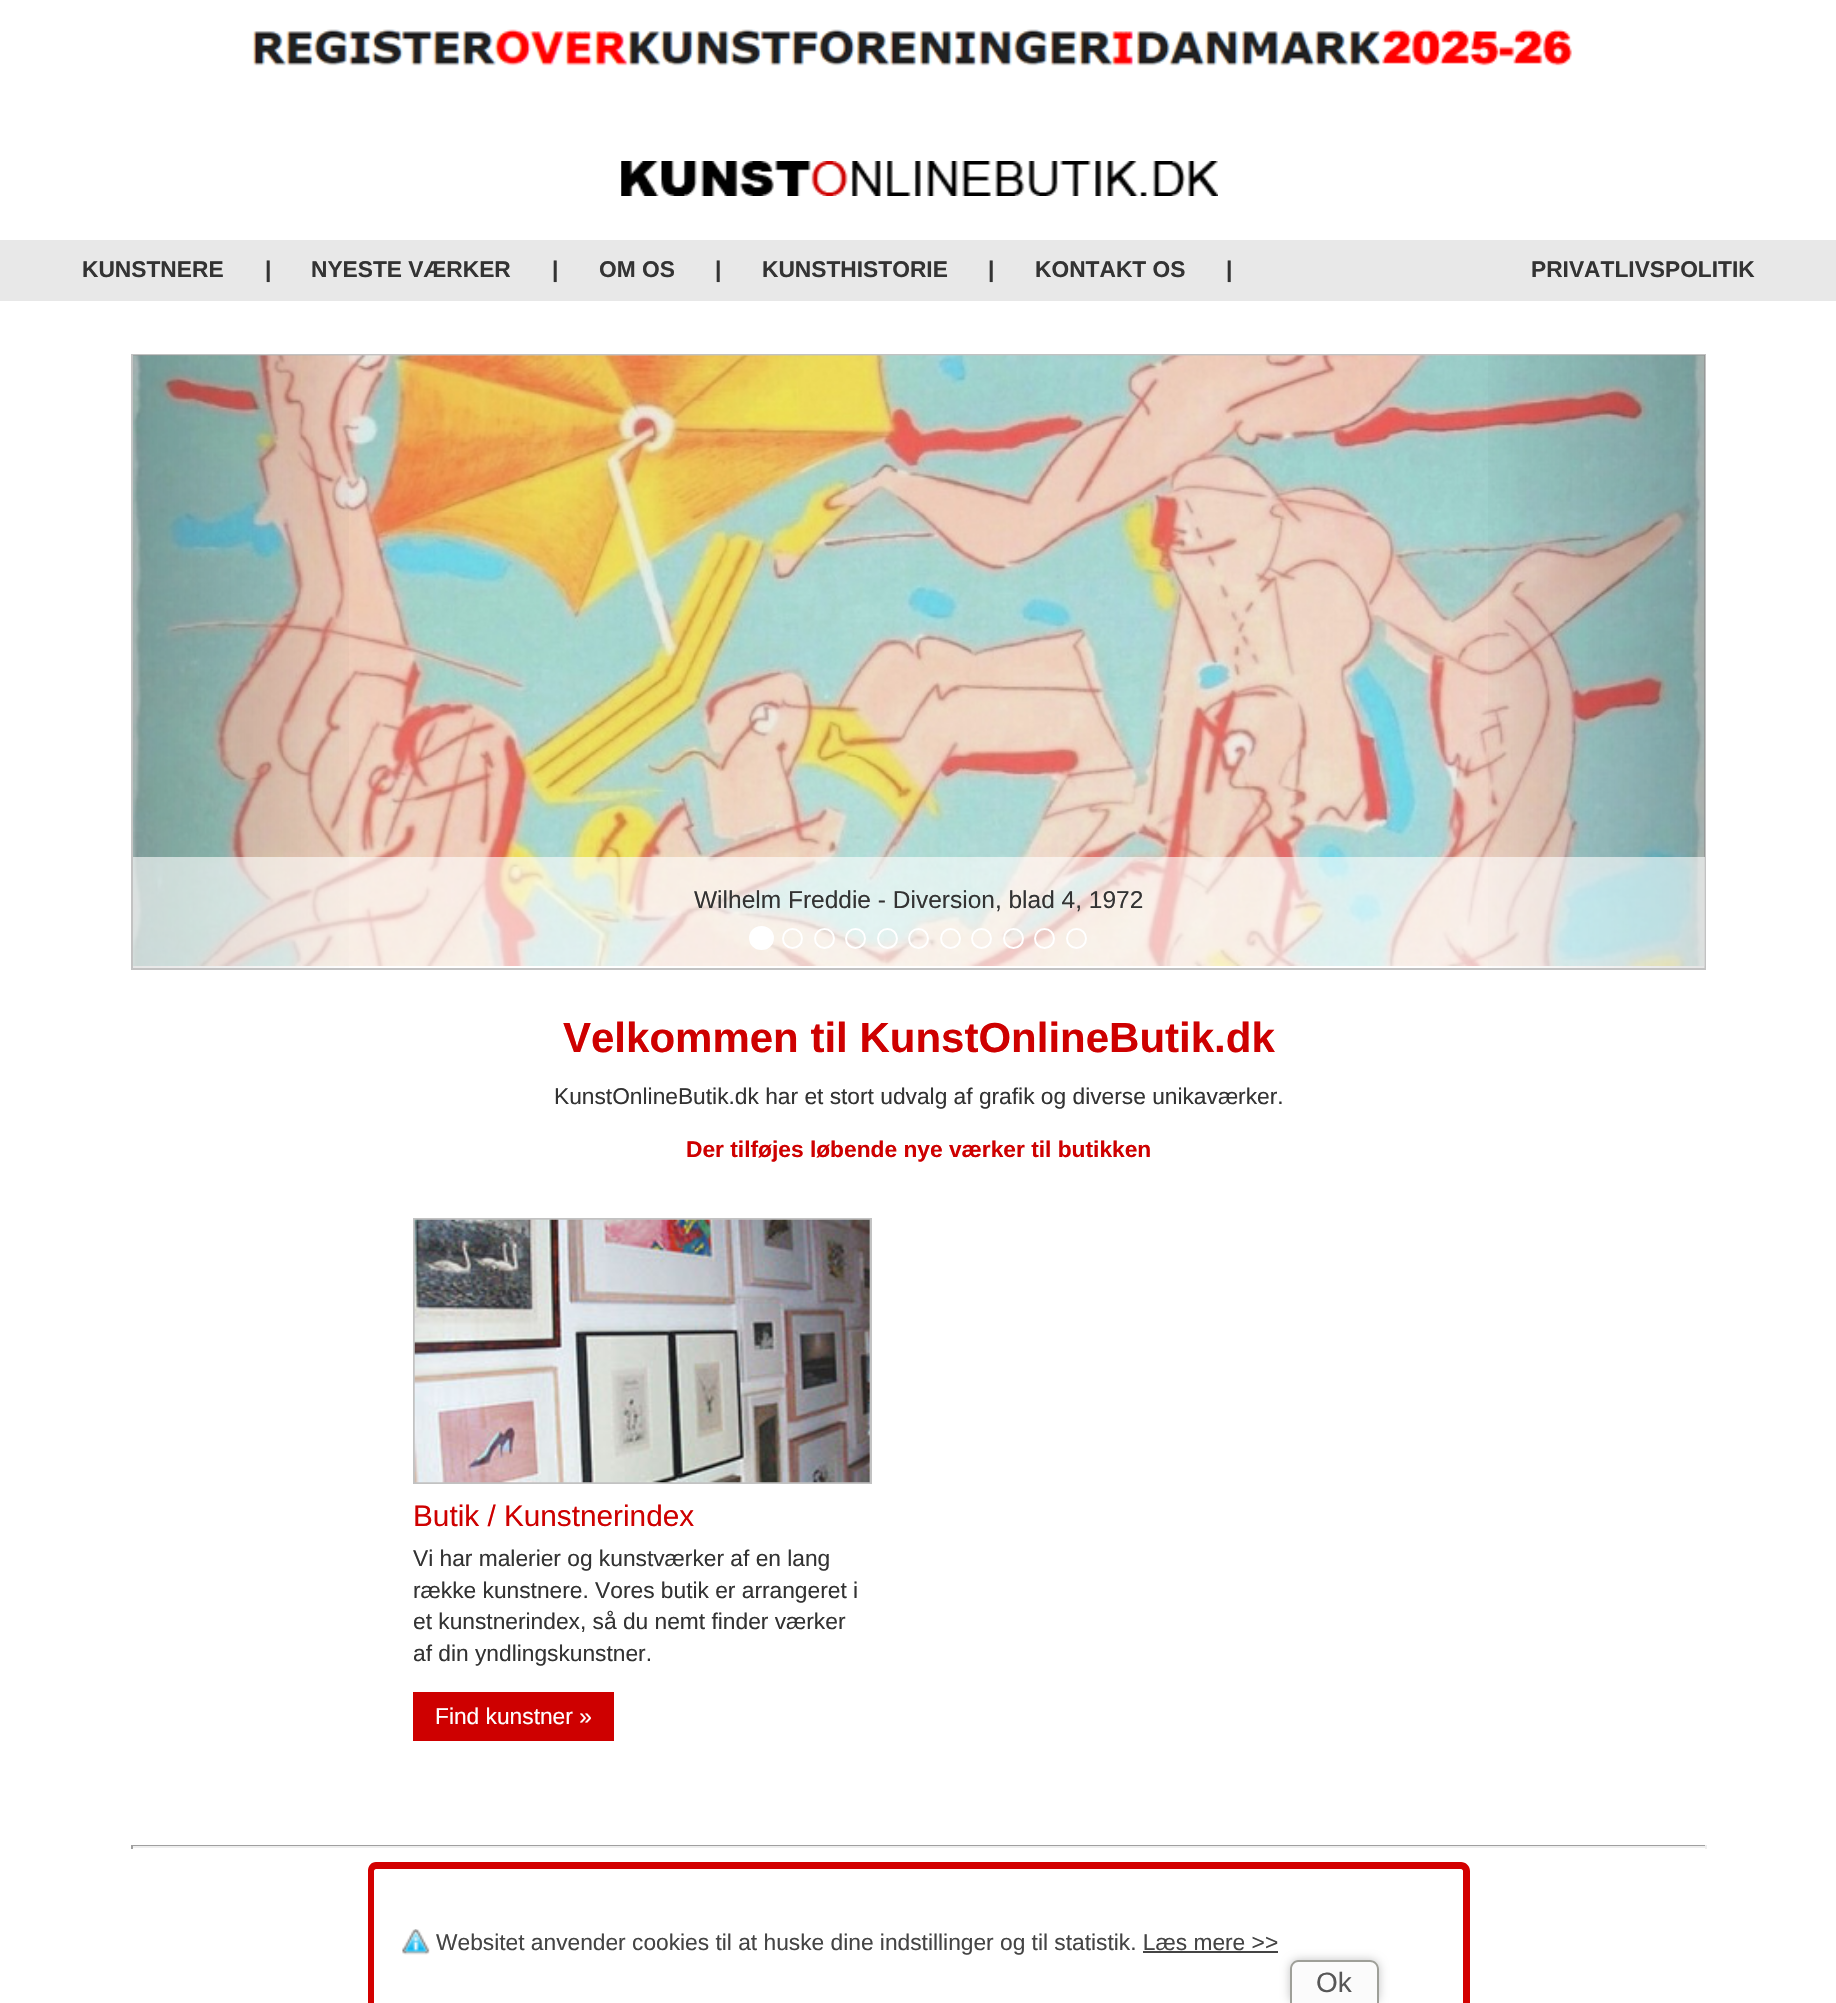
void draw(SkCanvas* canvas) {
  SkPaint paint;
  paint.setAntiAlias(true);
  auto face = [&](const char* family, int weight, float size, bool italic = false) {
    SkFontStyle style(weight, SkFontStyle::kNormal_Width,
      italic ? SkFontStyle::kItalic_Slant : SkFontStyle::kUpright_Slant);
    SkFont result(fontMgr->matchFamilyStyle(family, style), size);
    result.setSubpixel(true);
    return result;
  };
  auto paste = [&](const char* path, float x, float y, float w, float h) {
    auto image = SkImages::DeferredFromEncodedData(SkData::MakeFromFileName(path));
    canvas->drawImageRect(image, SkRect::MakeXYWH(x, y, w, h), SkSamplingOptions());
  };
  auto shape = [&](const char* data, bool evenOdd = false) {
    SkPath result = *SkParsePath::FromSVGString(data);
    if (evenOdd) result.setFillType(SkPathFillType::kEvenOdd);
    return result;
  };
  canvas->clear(0xffffffff);
  paste("img/1.png", 253, 29, 1319, 37);
  paste("img/2.png", 621, 161, 597, 35);
  paint.setColor(0xffe8e8e8);
  canvas->drawRect(SkRect::MakeXYWH(0, 240, 1836, 61), paint);
  paint.setStroke(true);
  paint.setStrokeWidth(2);
  paint.setColor(0xffc2c2c2);
  canvas->drawRect(SkRect::MakeXYWH(132, 355, 1573, 614), paint);
  paste("img/3.png", 133, 355, 1572, 611);
  paint.setStroke(false);
  {
    const SkColor colors[] = {0x40000000, 0x00000000};
    const float stops[] = {0, 1};
    const SkPoint ends[] = {{133, 662}, {369, 662}};
    paint.setShader(SkGradientShader::MakeLinear(ends, colors, stops, 2, SkTileMode::kClamp));
    paint.setAlpha(255);
  }
  canvas->drawRect(SkRect::MakeXYWH(133, 355, 216, 613), paint);
  {
    const SkColor colors[] = {0x00000000, 0x40000000};
    const float stops[] = {0, 1};
    const SkPoint ends[] = {{1468, 662}, {1705, 662}};
    paint.setShader(SkGradientShader::MakeLinear(ends, colors, stops, 2, SkTileMode::kClamp));
    paint.setAlpha(255);
  }
  canvas->drawRect(SkRect::MakeXYWH(1488, 355, 217, 613), paint);
  paint.setShader(nullptr);
  paint.setColor(0x99ffffff);
  canvas->drawRect(SkRect::MakeXYWH(133, 857, 1572, 111), paint);
  paint.setColor(0xffffffff);
  canvas->drawRoundRect(SkRect::MakeXYWH(750, 927, 23, 22), 11, 11, paint);
  paint.setStroke(true);
  canvas->drawRoundRect(SkRect::MakeXYWH(750, 927, 23, 22), 11, 11, paint);
  canvas->drawCircle(792.5f, 938.5f, 9.5f, paint);
  canvas->drawCircle(824.5f, 938.5f, 9.5f, paint);
  canvas->drawCircle(855.5f, 938.5f, 9.5f, paint);
  canvas->drawCircle(887.5f, 938.5f, 9.5f, paint);
  canvas->drawCircle(918.5f, 938.5f, 9.5f, paint);
  canvas->drawCircle(950.5f, 938.5f, 9.5f, paint);
  canvas->drawCircle(981.5f, 938.5f, 9.5f, paint);
  canvas->drawCircle(1013.5f, 938.5f, 9.5f, paint);
  canvas->drawCircle(1044.5f, 938.5f, 9.5f, paint);
  canvas->drawCircle(1076.5f, 938.5f, 9.5f, paint);
  paint.setColor(0xffc2c2c2);
  canvas->drawRect(SkRect::MakeXYWH(414, 1219, 457, 264), paint);
  paste("img/4.png", 414, 1219, 456, 264);
  paint.setStroke(false);
  {
    const struct { float x, y, w, h; SkColor color; } items[] = {
      {413, 1692, 201, 49, 0xffce0000},
      {131, 1845, 1575, 1, 0xff9f9f9f},
      {1705, 1845, 2, 4, 0xffeeeeee},
      {131, 1846, 1575, 2, 0xffeeeeee},
      {131, 1845, 2, 4, 0xff9f9f9f},
    };
    for (auto [x, y, w, h, color] : items) {
      paint.setColor(color);
      canvas->drawRect(SkRect::MakeXYWH(x, y, w, h), paint);
    }
  }
  paint.setColor(0xffd30000);
  canvas->drawPath(shape("M376 1862H1461C1466 1862 1470 1866 1470 1871V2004H368V1871C368 1866 371 1862 376 1862ZM376 1869H1461C1462 1869 1463 1870 1463 1871V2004H374V1871C374 1870 375 1869 376 1869Z", true), paint);
  paste("img/5.png", 402, 1929, 28, 26);
  paint.setColor(0xff444444);
  canvas->drawRect(SkRect::MakeXYWH(1143, 1951, 135, 2), paint);
  paint.setColor(0xffc2c2c2);
  paint.setMaskFilter(SkMaskFilter::MakeBlur(kNormal_SkBlurStyle, 5));
  canvas->drawRoundRect(SkRect::MakeXYWH(1290, 1960, 89, 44), 9, 9, paint);
  paint.setMaskFilter(nullptr);
  paint.setColor(0xfffbfbfb);
  canvas->drawPath(shape("M1299 1960H1370C1375 1960 1379 1964 1379 1969V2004H1290V1969C1290 1964 1294 1960 1299 1960Z"), paint);
  paint.setColor(0xff9e9f98);
  canvas->drawPath(shape("M1298 1960H1370C1375 1960 1379 1964 1379 1969V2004H1290V1969C1290 1964 1294 1960 1298 1960ZM1298 1962H1370C1374 1962 1377 1965 1377 1969V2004H1292V1969C1292 1965 1295 1962 1298 1962Z", true), paint);
  auto f0 = face("Liberation Sans", 700, 22.75f);
  paint.setColor(0xff333333);
  {
    const struct { const char* s; float x, y; } items[] = {
      {"KUNSTNERE", 82, 277},
      {"|", 265, 277},
      {"NYESTE VÆRKER", 311, 277},
      {"|", 552, 277},
      {"OM OS", 599, 277},
      {"|", 715, 277},
      {"KUNSTHISTORIE", 762, 277},
      {"|", 988, 277},
      {"KONTAKT OS", 1035, 277},
      {"|", 1226, 277},
      {"PRIVATLIVSPOLITIK", 1531, 277},
    };
    for (auto [s, x, y] : items) {
      canvas->drawString(s, x, y, f0, paint);
    }
  }
  auto f1 = face("Liberation Sans", 400, 24.5f);
  canvas->drawString("Wilhelm Freddie - Diversion, blad 4, 1972", 694, 908, f1, paint);
  auto f2 = face("Liberation Sans", 700, 42);
  paint.setColor(0xffce0000);
  canvas->drawString("Velkommen til KunstOnlineButik.dk", 563, 1052, f2, paint);
  auto f3 = face("Liberation Sans", 400, 22.75f);
  paint.setColor(0xff333333);
  canvas->drawString("KunstOnlineButik.dk har et stort udvalg af grafik og diverse unikaværker.", 554, 1104, f3, paint);
  paint.setColor(0xffce0000);
  canvas->drawString("Der tilføjes løbende nye værker til butikken", 686, 1157, f0, paint);
  auto f4 = face("Liberation Sans", 400, 29.75f);
  canvas->drawString("Butik / Kunstnerindex", 413, 1526, f4, paint);
  paint.setColor(0xff333333);
  {
    const struct { const char* s; float x, y; } items[] = {
      {"Vi har malerier og kunstværker af en lang", 413, 1566},
      {"række kunstnere. Vores butik er arrangeret i", 413, 1598},
      {"et kunstnerindex, så du nemt finder værker", 413, 1629},
      {"af din yndlingskunstner.", 413, 1661},
    };
    for (auto [s, x, y] : items) {
      canvas->drawString(s, x, y, f3, paint);
    }
  }
  paint.setColor(0xffffffff);
  canvas->drawString("Find kunstner »", 435, 1724, f3, paint);
  paint.setColor(0xff444444);
  canvas->drawString("Websitet anvender cookies til at huske dine indstillinger og til statistik. Læs mere >>", 436, 1950, f3, paint);
  auto f5 = face("Liberation Sans", 400, 28);
  paint.setColor(0xff575757);
  canvas->drawString("Ok", 1316, 1992, f5, paint);
}
